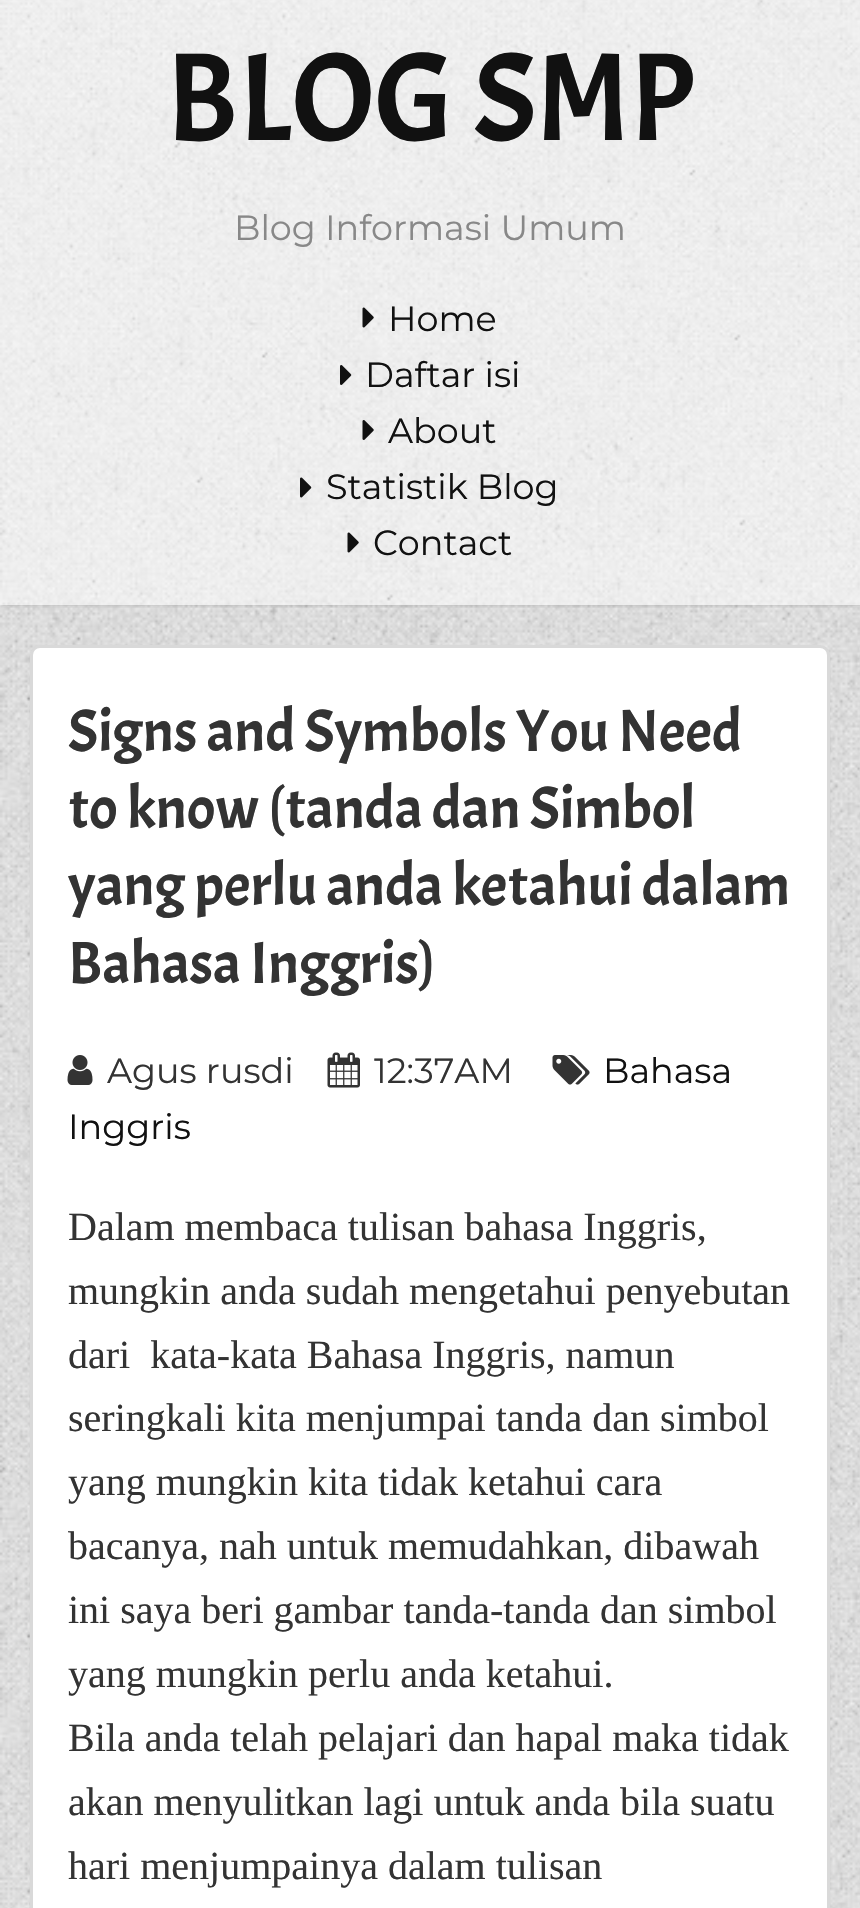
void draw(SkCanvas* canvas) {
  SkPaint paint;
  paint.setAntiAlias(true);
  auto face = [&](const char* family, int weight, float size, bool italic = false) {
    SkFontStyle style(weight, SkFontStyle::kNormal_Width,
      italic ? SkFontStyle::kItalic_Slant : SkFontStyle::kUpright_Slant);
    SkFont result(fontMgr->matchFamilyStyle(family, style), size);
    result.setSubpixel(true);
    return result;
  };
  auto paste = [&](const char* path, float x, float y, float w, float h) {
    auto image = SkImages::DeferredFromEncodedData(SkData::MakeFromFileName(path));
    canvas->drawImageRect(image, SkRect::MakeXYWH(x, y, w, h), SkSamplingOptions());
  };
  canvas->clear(0xffffffff);
  paste("img/1.png", 0, 0, 860, 1908);
  canvas->save();
  canvas->clipRect(SkRect::MakeXYWH(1, 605, 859, 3));
  paint.setColor(0x33000000);
  paint.setMaskFilter(SkMaskFilter::MakeBlur(kNormal_SkBlurStyle, 2.5f));
  canvas->drawRect(SkRect::MakeXYWH(3, 0, 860, 605), paint);
  paint.setMaskFilter(nullptr);
  canvas->restore();
  paint.setColor(0x80ffffff);
  canvas->drawRect(SkRect::MakeXYWH(0, 0, 860, 605), paint);
  paste("img/2.png", 362, 307, 12, 21);
  paste("img/3.png", 340, 365, 12, 20);
  paste("img/4.png", 362, 420, 12, 20);
  paste("img/5.png", 300, 477, 12, 21);
  paste("img/6.png", 347, 532, 12, 21);
  paint.setColor(0x1a323232);
  paint.setMaskFilter(SkMaskFilter::MakeBlur(kNormal_SkBlurStyle, 1));
  canvas->drawRoundRect(SkRect::MakeXYWH(30, 648, 800, 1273), 10, 10, paint);
  paint.setMaskFilter(nullptr);
  paint.setColor(0xffffffff);
  canvas->drawRoundRect(SkRect::MakeXYWH(30, 645, 800, 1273), 10, 10, paint);
  paint.setStroke(true);
  paint.setStrokeWidth(3);
  paint.setColor(0x26000000);
  canvas->drawRoundRect(SkRect::MakeXYWH(31.5f, 646.5f, 797, 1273), 8.5f, 8.5f, paint);
  paste("img/7.png", 552, 1055, 38, 30);
  paste("img/8.png", 67, 1055, 26, 30);
  paste("img/9.png", 327, 1052, 33, 36);
  auto f0 = face("Acme", 400, 125);
  paint.setStroke(false);
  paint.setColor(0xff111111);
  canvas->drawString("BLOG SMP", 166, 140, f0, paint);
  auto f1 = face("Montserrat", 100, 35);
  paint.setColor(0xff888888);
  canvas->drawString("Blog Informasi Umum", 234, 240, f1, paint);
  paint.setColor(0xff111111);
  {
    const struct { const char* s; float x, y; } items[] = {
      {"Home", 388, 331},
      {"Daftar isi", 365, 387},
      {"About", 388, 443},
      {"Statistik Blog", 326, 499},
      {"Contact", 373, 555},
    };
    for (auto [s, x, y] : items) {
      canvas->drawString(s, x, y, f1, paint);
    }
  }
  auto f2 = face("Acme", 400, 59.5f);
  paint.setColor(0xff333333);
  {
    const struct { const char* s; float x, y; } items[] = {
      {"Signs and Symbols You Need", 68, 751},
      {"to know (tanda dan Simbol", 68, 828},
      {"yang perlu anda ketahui dalam", 68, 905},
      {"Bahasa Inggris)", 68, 983},
    };
    for (auto [s, x, y] : items) {
      canvas->drawString(s, x, y, f2, paint);
    }
  }
  paint.setColor(0xff111111);
  canvas->drawString("Bahasa", 603, 1083, f1, paint);
  canvas->drawString("Inggris", 68, 1139, f1, paint);
  paint.setColor(0xff333333);
  canvas->drawString("Agus rusdi", 107, 1083, f1, paint);
  canvas->drawString("12:37 AM", 374, 1083, f1, paint);
  auto f3 = face("Liberation Serif", 400, 40);
  {
    const struct { const char* s; float x, y; } items[] = {
      {"Dalam membaca tulisan bahasa Inggris,", 68, 1240},
      {"mungkin anda sudah mengetahui penyebutan", 68, 1304},
      {"dari  kata-kata Bahasa Inggris, namun", 68, 1368},
      {"seringkali kita menjumpai tanda dan simbol", 68, 1431},
      {"yang mungkin kita tidak ketahui cara", 68, 1495},
      {"bacanya, nah untuk memudahkan, dibawah", 68, 1559},
      {"ini saya beri gambar tanda-tanda dan simbol", 68, 1623},
      {"yang mungkin perlu anda ketahui.", 68, 1687},
      {"Bila anda telah pelajari dan hapal maka tidak", 68, 1751},
      {"akan menyulitkan lagi untuk anda bila suatu", 68, 1815},
      {"hari menjumpainya dalam tulisan", 68, 1879},
    };
    for (auto [s, x, y] : items) {
      canvas->drawString(s, x, y, f3, paint);
    }
  }
}
